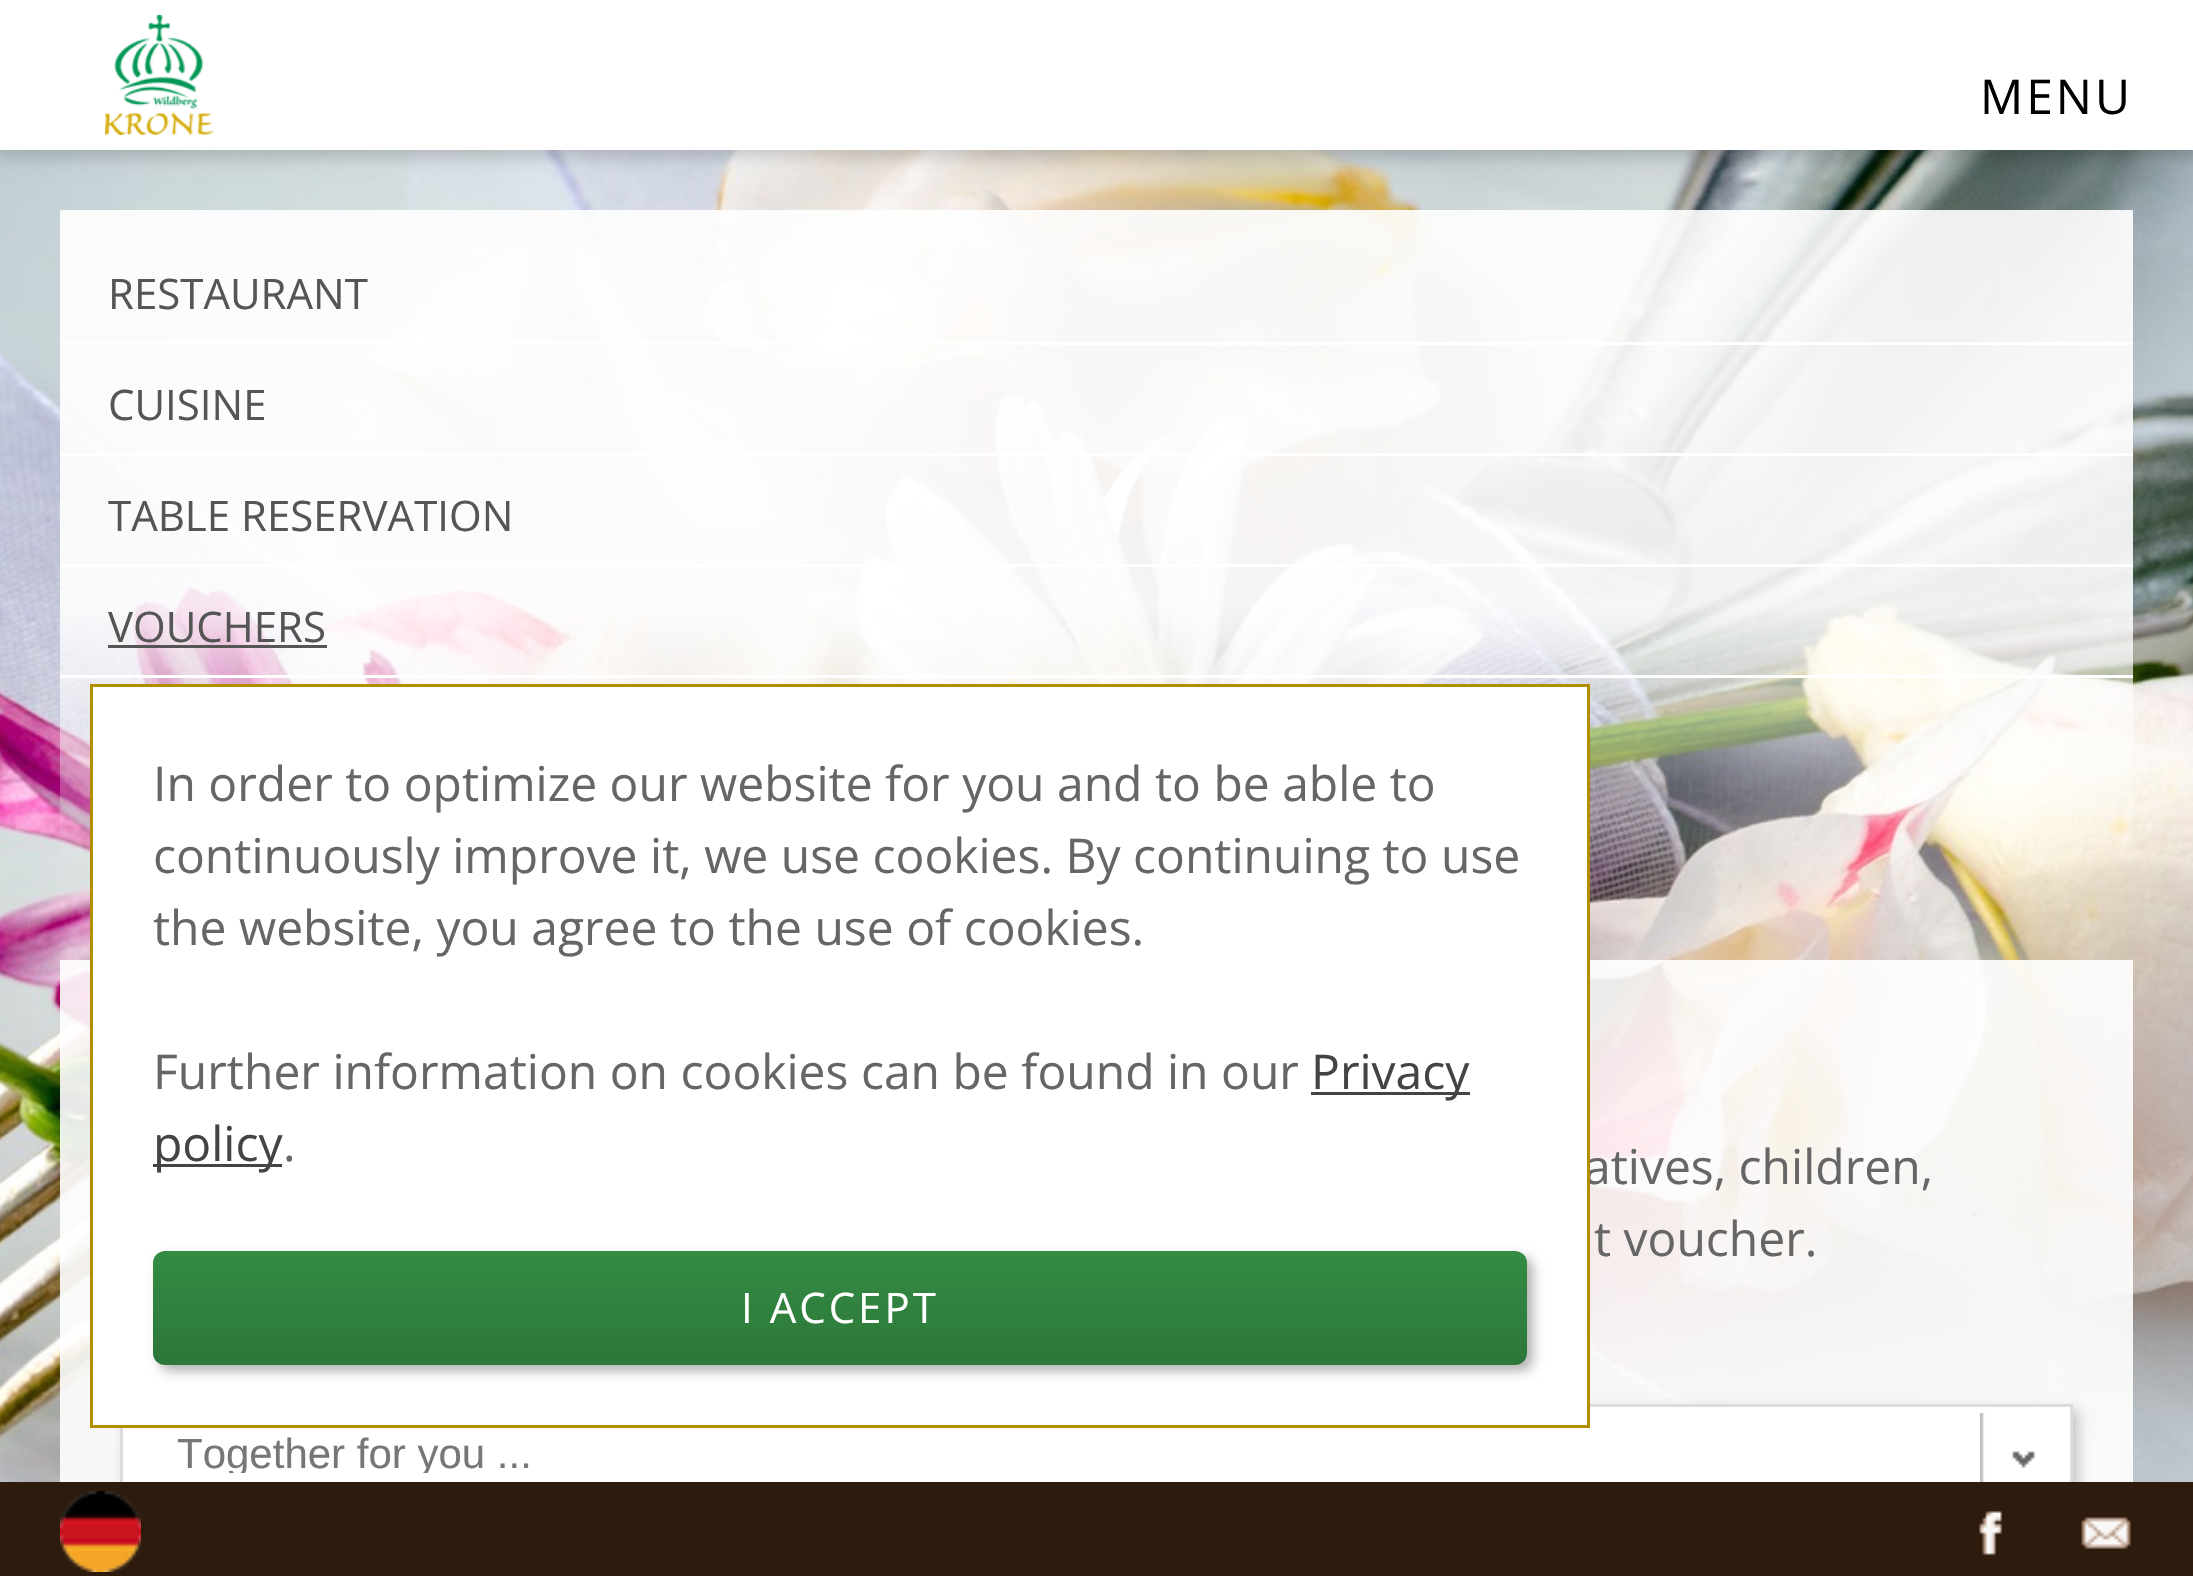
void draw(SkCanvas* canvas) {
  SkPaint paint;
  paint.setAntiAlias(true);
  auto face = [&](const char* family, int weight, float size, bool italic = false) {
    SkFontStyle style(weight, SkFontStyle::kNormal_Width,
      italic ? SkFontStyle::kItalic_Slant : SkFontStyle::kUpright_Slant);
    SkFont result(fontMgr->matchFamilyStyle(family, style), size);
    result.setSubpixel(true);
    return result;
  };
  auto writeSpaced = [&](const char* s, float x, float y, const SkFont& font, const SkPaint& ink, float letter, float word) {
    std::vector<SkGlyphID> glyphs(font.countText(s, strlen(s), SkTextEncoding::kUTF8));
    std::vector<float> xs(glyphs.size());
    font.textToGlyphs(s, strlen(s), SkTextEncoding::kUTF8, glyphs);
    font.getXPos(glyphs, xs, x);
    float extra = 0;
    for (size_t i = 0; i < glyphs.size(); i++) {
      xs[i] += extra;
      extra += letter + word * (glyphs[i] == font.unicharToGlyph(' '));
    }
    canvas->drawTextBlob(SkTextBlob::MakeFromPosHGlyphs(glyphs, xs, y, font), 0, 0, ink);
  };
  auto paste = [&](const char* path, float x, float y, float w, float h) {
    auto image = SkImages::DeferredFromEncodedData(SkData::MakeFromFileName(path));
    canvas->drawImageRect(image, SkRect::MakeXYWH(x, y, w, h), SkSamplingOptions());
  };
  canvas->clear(0xffffffff);
  paste("img/6.png", 0, 150, 2193, 1332);
  paint.setColor(0x33000000);
  paint.setMaskFilter(SkMaskFilter::MakeBlur(kNormal_SkBlurStyle, 9));
  canvas->drawRect(SkRect::MakeXYWH(-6, -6, 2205, 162), paint);
  paint.setMaskFilter(nullptr);
  paint.setColor(0xffffffff);
  canvas->drawRect(SkRect::MakeXYWH(0, 0, 2193, 150), paint);
  paste("img/1.png", 105, 15, 108, 120);
  {
    const struct { float x, y, w, h; SkColor color; } items[] = {
      {60, 342, 2073, 3, 0xffffffff},
      {60, 453, 2073, 3, 0xffffffff},
      {60, 564, 2073, 3, 0xffffffff},
      {60, 675, 2073, 3, 0xffffffff},
      {108, 645, 219, 3, 0xff555555},
      {60, 960, 2073, 522, 0xe6ffffff},
    };
    for (auto [x, y, w, h, color] : items) {
      paint.setColor(color);
      canvas->drawRect(SkRect::MakeXYWH(x, y, w, h), paint);
    }
  }
  paint.setColor(0x33000000);
  paint.setMaskFilter(SkMaskFilter::MakeBlur(kNormal_SkBlurStyle, 6));
  canvas->drawRect(SkRect::MakeXYWH(126, 1410, 1953, 108), paint);
  paint.setMaskFilter(nullptr);
  paint.setColor(0xffffffff);
  canvas->drawRect(SkRect::MakeXYWH(123, 1407, 1947, 75), paint);
  paint.setStroke(true);
  paint.setStrokeWidth(3);
  paint.setColor(0xffdcdcdc);
  canvas->drawRect(SkRect::MakeXYWH(121.5f, 1405.5f, 1950, 105), paint);
  paste("img/2.png", 1980, 1413, 55, 69);
  paint.setStroke(false);
  paint.setColor(0xff2d1b0e);
  canvas->drawRect(SkRect::MakeXYWH(0, 1482, 2193, 94), paint);
  paste("img/3.png", 60, 1491, 81, 81);
  paste("img/4.png", 1979, 1511, 23, 44);
  paste("img/5.png", 2081, 1517, 50, 32);
  auto f0 = face("Open Sans", 400, 48);
  paint.setColor(0xff000000);
  writeSpaced("MENU", 1980, 114, f0, paint, 3, 0);
  auto f1 = face("Open Sans", 400, 42);
  paint.setColor(0xff555555);
  {
    const struct { const char* s; float x, y; } items[] = {
      {"RESTAURANT", 108, 309},
      {"CUISINE", 108, 420},
      {"TABLE RESERVATION", 108, 531},
      {"VOUCHERS", 108, 642},
    };
    for (auto [s, x, y] : items) {
      canvas->drawString(s, x, y, f1, paint);
    }
  }
  paint.setColor(0xff666666);
  canvas->drawString("atives, children,", 1584, 1184, f0, paint);
  canvas->drawString("t voucher.", 1594, 1256, f0, paint);
  canvas->save();
  canvas->clipRect(SkRect::MakeXYWH(177, 1431, 1887, 42));
  auto f2 = face("Liberation Sans", 400, 42);
  paint.setColor(0xff777777);
  canvas->drawString("Together for you ...", 177, 1468, f2, paint);
  canvas->restore();
  paint.setColor(0xffffffff);
  canvas->drawRect(SkRect::MakeXYWH(91.5f, 685.5f, 1497, 741), paint);
  paint.setStroke(true);
  paint.setColor(0xffb28f00);
  canvas->drawRect(SkRect::MakeXYWH(91.5f, 685.5f, 1497, 741), paint);
  paint.setStroke(false);
  paint.setColor(0xff666666);
  {
    const struct { const char* s; float x, y; } items[] = {
      {"In order to optimize our website for you and to be able to", 153, 801},
      {"continuously improve it, we use cookies. By continuing to use", 153, 873},
      {"the website, you agree to the use of cookies.", 153, 945},
      {"Further information on cookies can be found in our", 153, 1089},
    };
    for (auto [s, x, y] : items) {
      canvas->drawString(s, x, y, f0, paint);
    }
  }
  paint.setColor(0xff444444);
  canvas->drawRect(SkRect::MakeXYWH(1311, 1092, 159, 3), paint);
  canvas->drawString("Privacy", 1311, 1089, f0, paint);
  canvas->drawRect(SkRect::MakeXYWH(153, 1164, 129, 3), paint);
  canvas->drawString("policy", 153, 1161, f0, paint);
  paint.setColor(0xff666666);
  canvas->drawString(".", 283, 1161, f0, paint);
  paint.setColor(0x4d000000);
  paint.setMaskFilter(SkMaskFilter::MakeBlur(kNormal_SkBlurStyle, 6));
  canvas->drawRoundRect(SkRect::MakeXYWH(159, 1257, 1374, 114), 12, 12, paint);
  paint.setMaskFilter(nullptr);
  {
    const SkColor colors[] = {0xff348c43, 0xff2c7739};
    const float stops[] = {0, 1};
    const SkPoint ends[] = {{840, 1251}, {840, 1365}};
    paint.setShader(SkGradientShader::MakeLinear(ends, colors, stops, 2, SkTileMode::kClamp));
    paint.setAlpha(255);
  }
  canvas->drawRoundRect(SkRect::MakeXYWH(153, 1251, 1374, 114), 12, 12, paint);
  paint.setShader(nullptr);
  paint.setColor(0xffffffff);
  writeSpaced("I ACCEPT", 741, 1323, f1, paint, 3, 0);
}
